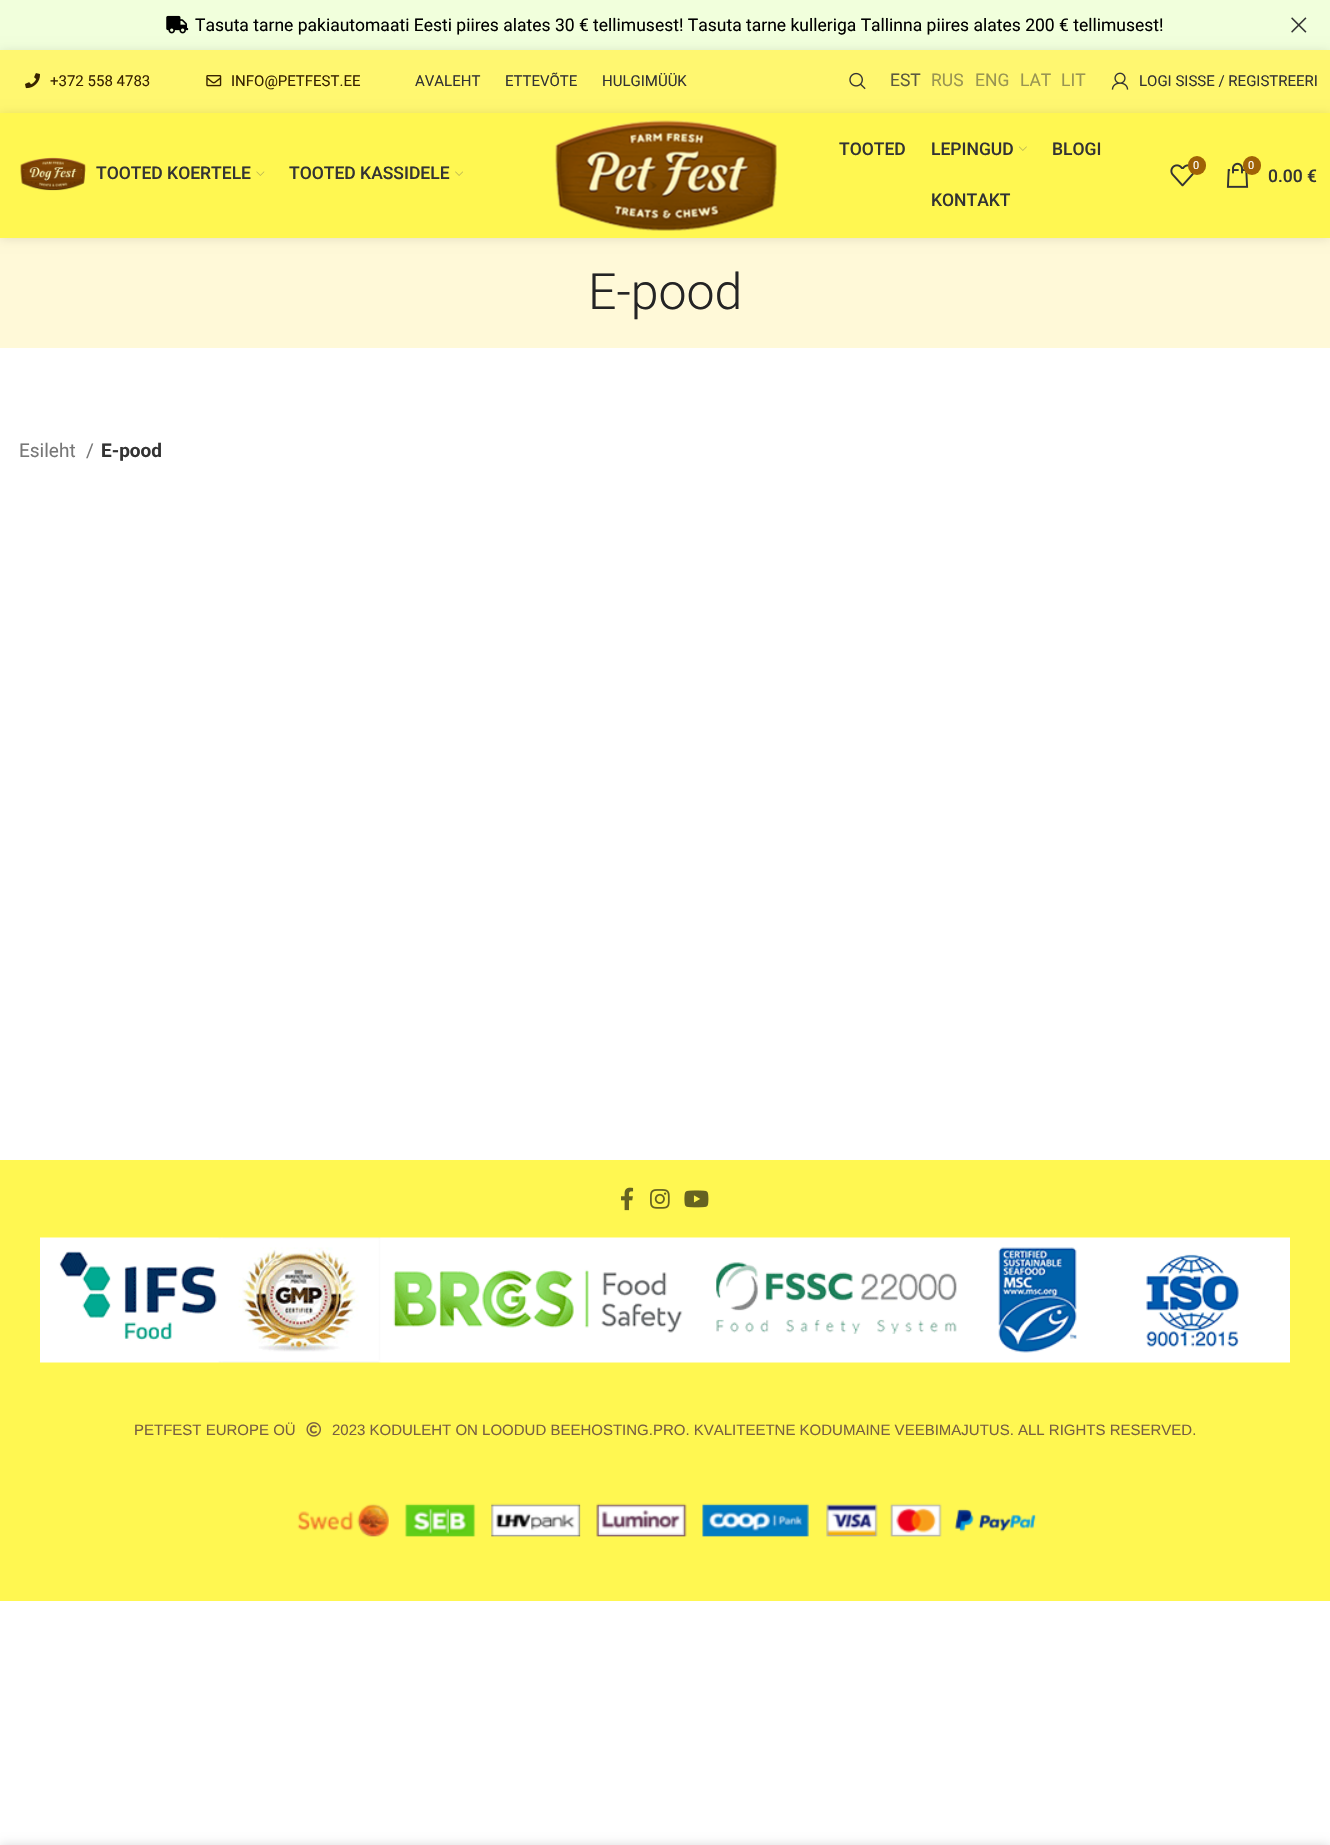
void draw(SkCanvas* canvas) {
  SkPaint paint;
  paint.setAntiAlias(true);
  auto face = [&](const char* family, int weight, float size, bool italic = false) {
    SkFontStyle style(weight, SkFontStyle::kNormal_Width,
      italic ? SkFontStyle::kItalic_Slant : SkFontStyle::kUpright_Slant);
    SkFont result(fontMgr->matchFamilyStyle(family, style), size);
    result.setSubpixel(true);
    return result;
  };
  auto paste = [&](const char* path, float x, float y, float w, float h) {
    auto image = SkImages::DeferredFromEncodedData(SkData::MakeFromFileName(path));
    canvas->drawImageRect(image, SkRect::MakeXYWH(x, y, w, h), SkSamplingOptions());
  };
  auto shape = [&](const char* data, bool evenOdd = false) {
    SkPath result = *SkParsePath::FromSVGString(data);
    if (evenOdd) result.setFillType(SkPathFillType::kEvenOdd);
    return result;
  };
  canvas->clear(0xffffffff);
  paint.setColor(0xfff1ffdc);
  canvas->drawRect(SkRect::MakeXYWH(0, 0, 1330, 50), paint);
  paste("img/1.png", 166, 15, 23, 19);
  paste("img/2.png", 1291, 17, 16, 16);
  paint.setStroke(true);
  paint.setStrokeWidth(1.2f);
  canvas->drawPath(shape("M1291 32.5C1287 28.5 1287 21.5 1291 17.5"), paint);
  paint.setStroke(false);
  paint.setColor(0x1a000000);
  paint.setMaskFilter(SkMaskFilter::MakeBlur(kNormal_SkBlurStyle, 5));
  canvas->drawRect(SkRect::MakeXYWH(0, 51, 1330, 63), paint);
  paint.setMaskFilter(nullptr);
  paint.setColor(0xfffff770);
  canvas->drawRect(SkRect::MakeXYWH(0, 50, 1330, 63), paint);
  paste("img/3.png", 25, 73, 15, 16);
  paste("img/4.png", 206, 75, 16, 12);
  paste("img/5.png", 849, 72, 17, 18);
  paste("img/6.png", 1111, 72, 18, 18);
  paint.setColor(0xfffff9d8);
  canvas->drawRect(SkRect::MakeXYWH(0, 238, 1330, 110), paint);
  paint.setColor(0x1a000000);
  paint.setMaskFilter(SkMaskFilter::MakeBlur(kNormal_SkBlurStyle, 5));
  canvas->drawRect(SkRect::MakeXYWH(0, 114, 1330, 125), paint);
  paint.setMaskFilter(nullptr);
  paint.setColor(0xfffff751);
  canvas->drawRect(SkRect::MakeXYWH(0, 113, 1330, 125), paint);
  paste("img/7.png", 20, 157, 66, 34);
  paste("img/8.png", 256, 171, 9, 5);
  paste("img/9.png", 455, 171, 8, 5);
  paste("img/10.png", 555, 120, 222, 111);
  paste("img/11.png", 1019, 146, 8, 5);
  paste("img/12.png", 1170, 164, 24, 23);
  paint.setColor(0xffa06206);
  canvas->drawRoundRect(SkRect::MakeXYWH(1188, 156, 18, 19), 9, 9, paint);
  paste("img/13.png", 1226, 162, 23, 26);
  canvas->drawRoundRect(SkRect::MakeXYWH(1243, 156, 18, 19), 9, 9, paint);
  paint.setColor(0xfffff751);
  canvas->drawRect(SkRect::MakeXYWH(0, 1160, 1330, 441), paint);
  paste("img/14.png", 621, 1187, 13, 24);
  paste("img/15.png", 650, 1189, 20, 20);
  paste("img/16.png", 684, 1190, 25, 18);
  paste("img/17.png", 40, 1237, 1250, 126);
  paste("img/18.png", 306, 1422, 15, 15);
  paste("img/19.png", 297, 1503, 739, 34);
  paint.setColor(0x24000000);
  paint.setMaskFilter(SkMaskFilter::MakeBlur(kNormal_SkBlurStyle, 5.5f));
  canvas->drawRect(SkRect::MakeXYWH(0, 1845, 1330, 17), paint);
  paint.setMaskFilter(nullptr);
  auto f0 = face("Roboto", 400, 17.5f);
  paint.setColor(0xff000000);
  canvas->drawString("Tasuta tarne pakiautomaati Eesti piires alates 30 € tellimusest! Tasuta tarne kulleriga Tallinna piires alates 200 € tellimusest!", 195, 31, f0, paint);
  auto f1 = face("Roboto", 400, 15);
  paint.setColor(0xff382300);
  canvas->drawString("+372 558 4783", 50, 86, f1, paint);
  canvas->drawString("INFO@PETFEST.EE", 231, 86, f1, paint);
  paint.setColor(0xff333333);
  {
    const struct { const char* s; float x, y; } items[] = {
      {"AVALEHT", 415, 86},
      {"ETTEVÕTE", 505, 86},
      {"HULGIMÜÜK", 602, 86},
    };
    for (auto [s, x, y] : items) {
      canvas->drawString(s, x, y, f1, paint);
    }
  }
  paint.setColor(0xff5c5a3f);
  canvas->drawString("EST", 890, 86, f0, paint);
  paint.setColor(0xff999552);
  {
    const struct { const char* s; float x, y; } items[] = {
      {"RUS", 931, 86},
      {"ENG", 975, 86},
      {"LAT", 1020, 86},
      {"LIT", 1061, 86},
    };
    for (auto [s, x, y] : items) {
      canvas->drawString(s, x, y, f0, paint);
    }
  }
  paint.setColor(0xff333333);
  canvas->drawString("LOGI SISSE / REGISTREERI", 1139, 86, f1, paint);
  auto f2 = face("Roboto", 500, 17.5f);
  {
    const struct { const char* s; float x, y; } items[] = {
      {"TOOTED KOERTELE", 96, 179},
      {"TOOTED KASSIDELE", 289, 179},
      {"TOOTED", 839, 155},
      {"LEPINGUD", 931, 155},
      {"BLOGI", 1052, 155},
      {"KONTAKT", 931, 206},
    };
    for (auto [s, x, y] : items) {
      canvas->drawString(s, x, y, f2, paint);
    }
  }
  auto f3 = face("Roboto", 400, 11);
  paint.setColor(0xffffffff);
  canvas->drawString("0", 1193, 169, f3, paint);
  canvas->drawString("0", 1248, 169, f3, paint);
  paint.setColor(0xff333333);
  canvas->drawString("0.00 €", 1268, 182, f2, paint);
  auto f4 = face("Roboto", 300, 50);
  paint.setColor(0xff242424);
  canvas->drawString("E-pood", 588, 309, f4, paint);
  auto f5 = face("Roboto", 400, 19);
  paint.setColor(0xff777777);
  canvas->drawString("Esileht", 19, 457, f5, paint);
  canvas->drawString("/", 86, 457, f5, paint);
  auto f6 = face("Roboto", 700, 19);
  paint.setColor(0xff333333);
  canvas->drawString("E-pood", 101, 457, f6, paint);
  auto f7 = face("Liberation Sans", 400, 15);
  paint.setColor(0xff785f41);
  canvas->drawString("PETFEST EUROPE OÜ", 134, 1435, f7, paint);
  canvas->drawString("2023 KODULEHT ON LOODUD BEEHOSTING.PRO. KVALITEETNE KODUMAINE VEEBIMAJUTUS. ALL RIGHTS RESERVED.", 332, 1435, f7, paint);
}
